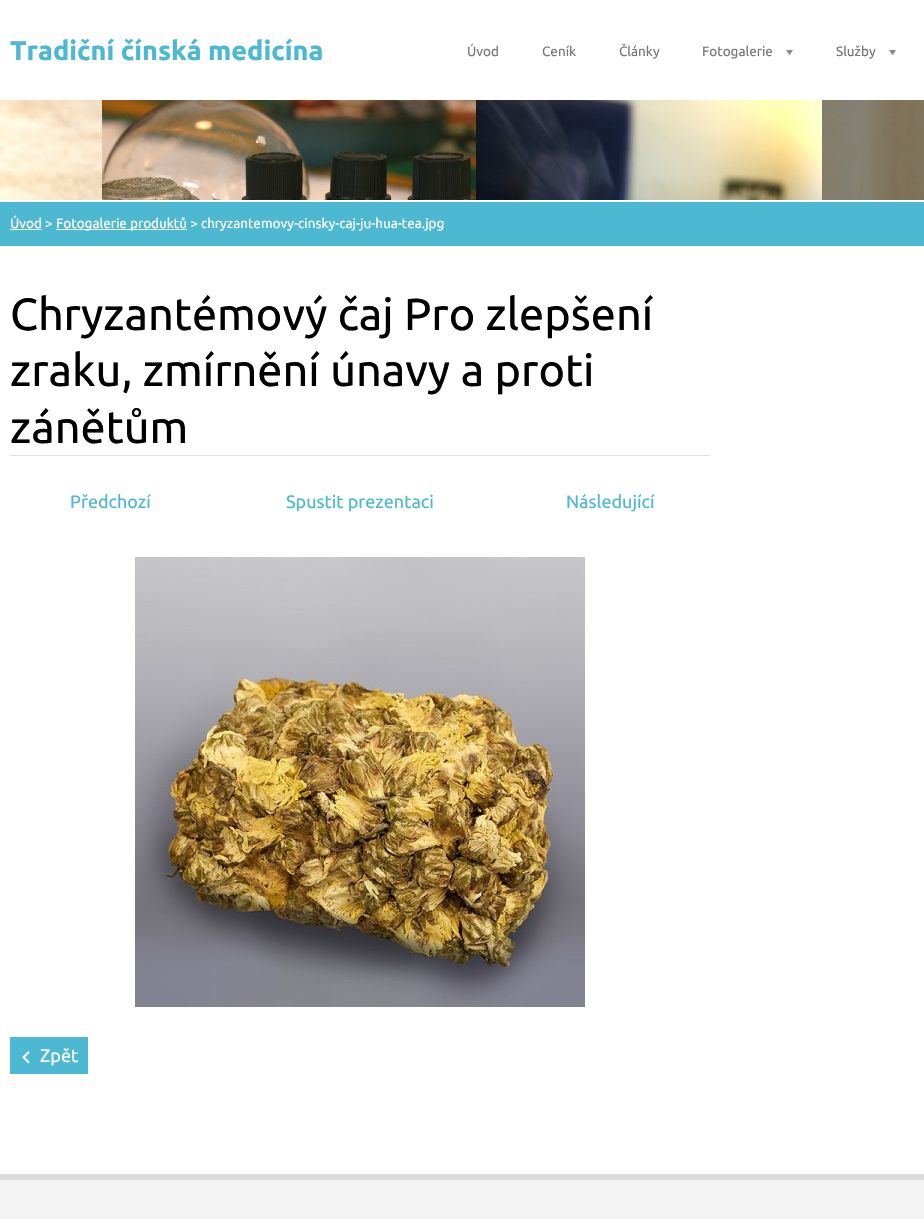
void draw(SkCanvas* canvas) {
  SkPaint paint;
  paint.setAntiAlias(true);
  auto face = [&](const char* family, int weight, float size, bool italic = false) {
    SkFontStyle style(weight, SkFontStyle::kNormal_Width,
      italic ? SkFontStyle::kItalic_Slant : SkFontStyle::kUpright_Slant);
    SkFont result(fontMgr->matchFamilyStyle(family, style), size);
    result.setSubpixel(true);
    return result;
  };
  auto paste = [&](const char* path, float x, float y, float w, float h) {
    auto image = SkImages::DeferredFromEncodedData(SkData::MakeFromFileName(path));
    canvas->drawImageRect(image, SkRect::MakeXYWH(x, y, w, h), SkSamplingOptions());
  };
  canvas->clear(0xffffffff);
  paste("img/1.png", 786, 50, 7, 6);
  paste("img/1.png", 889, 50, 7, 6);
  paste("img/2.png", 0, 100, 924, 100);
  {
    const struct { float x, y, w, h; SkColor color; } items[] = {
      {0, 202, 924, 44, 0xff4cb8d2},
      {10, 229, 32, 1, 0xffffffff},
      {56, 229, 131, 1, 0xffffffff},
      {10, 455, 700, 1, 0xffe2e2e2},
    };
    for (auto [x, y, w, h, color] : items) {
      paint.setColor(color);
      canvas->drawRect(SkRect::MakeXYWH(x, y, w, h), paint);
    }
  }
  paste("img/3.png", 135, 557, 450, 450);
  paint.setColor(0xff4cb8d2);
  canvas->drawRect(SkRect::MakeXYWH(10, 1037, 78, 37), paint);
  paste("img/4.png", 22, 1050, 8, 14);
  paint.setColor(0xfff3f3f3);
  canvas->drawRect(SkRect::MakeXYWH(0, 1180, 924, 39), paint);
  paint.setColor(0xffdadada);
  canvas->drawRect(SkRect::MakeXYWH(0, 1174, 924, 6), paint);
  auto f0 = face("Ubuntu", 700, 27);
  paint.setColor(0xff4cb8d2);
  canvas->drawString("Tradiční čínská medicína", 10, 60, f0, paint);
  auto f1 = face("Ubuntu", 400, 13.5f);
  paint.setColor(0xff777777);
  {
    const struct { const char* s; float x, y; } items[] = {
      {"Úvod", 467, 56},
      {"Ceník", 542, 56},
      {"Články", 619, 56},
      {"Fotogalerie", 702, 56},
      {"Služby", 836, 56},
    };
    for (auto [s, x, y] : items) {
      canvas->drawString(s, x, y, f1, paint);
    }
  }
  paint.setColor(0xffffffff);
  canvas->drawString("Úvod >", 10, 228, f1, paint);
  canvas->drawString("Fotogalerie produktů > chryzantemovy-cinsky-caj-ju-hua-tea.jpg", 56, 228, f1, paint);
  auto f2 = face("Ubuntu", 400, 45);
  paint.setColor(0xff000000);
  {
    const struct { const char* s; float x, y; } items[] = {
      {"Chryzantémový čaj Pro zlepšení", 10, 330},
      {"zraku, zmírnění únavy a proti", 10, 386},
      {"zánětům", 10, 443},
    };
    for (auto [s, x, y] : items) {
      canvas->drawString(s, x, y, f2, paint);
    }
  }
  auto f3 = face("Ubuntu", 400, 18);
  paint.setColor(0xff4cb8d2);
  {
    const struct { const char* s; float x, y; } items[] = {
      {"Předchozí", 70, 508},
      {"Spustit prezentaci", 286, 508},
      {"Následující", 566, 508},
    };
    for (auto [s, x, y] : items) {
      canvas->drawString(s, x, y, f3, paint);
    }
  }
  paint.setColor(0xffffffff);
  canvas->drawString("Zpět", 40, 1062, f3, paint);
}
